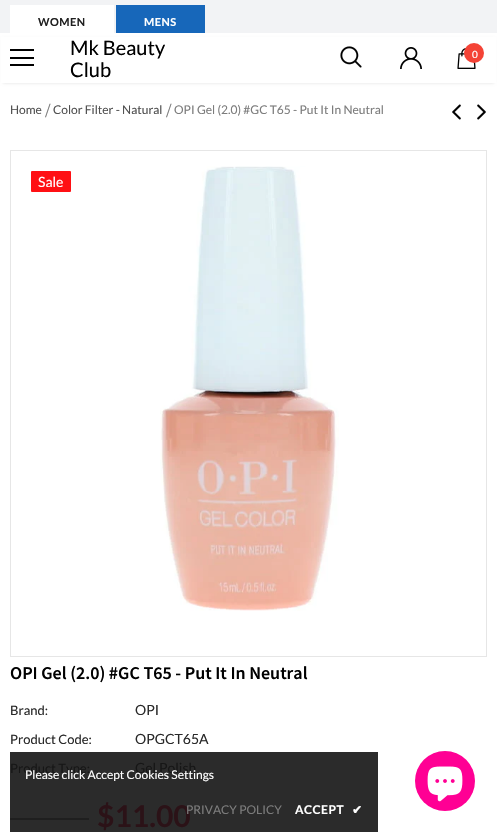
void draw(SkCanvas* canvas) {
  SkPaint paint;
  paint.setAntiAlias(true);
  auto face = [&](const char* family, int weight, float size, bool italic = false) {
    SkFontStyle style(weight, SkFontStyle::kNormal_Width,
      italic ? SkFontStyle::kItalic_Slant : SkFontStyle::kUpright_Slant);
    SkFont result(fontMgr->matchFamilyStyle(family, style), size);
    result.setSubpixel(true);
    return result;
  };
  auto writeSpaced = [&](const char* s, float x, float y, const SkFont& font, const SkPaint& ink, float letter, float word) {
    std::vector<SkGlyphID> glyphs(font.countText(s, strlen(s), SkTextEncoding::kUTF8));
    std::vector<float> xs(glyphs.size());
    font.textToGlyphs(s, strlen(s), SkTextEncoding::kUTF8, glyphs);
    font.getXPos(glyphs, xs, x);
    float extra = 0;
    for (size_t i = 0; i < glyphs.size(); i++) {
      xs[i] += extra;
      extra += letter + word * (glyphs[i] == font.unicharToGlyph(' '));
    }
    canvas->drawTextBlob(SkTextBlob::MakeFromPosHGlyphs(glyphs, xs, y, font), 0, 0, ink);
  };
  auto paste = [&](const char* path, float x, float y, float w, float h) {
    auto image = SkImages::DeferredFromEncodedData(SkData::MakeFromFileName(path));
    canvas->drawImageRect(image, SkRect::MakeXYWH(x, y, w, h), SkSamplingOptions());
  };
  canvas->clear(0xffffffff);
  {
    const struct { float x, y, w, h; SkColor color; } items[] = {
      {10, 752, 368, 80, 0xff2b2b2b},
      {0, 0, 497, 33, 0xfff2f3f5},
      {10, 5, 104, 28, 0xffffffff},
      {116, 5, 89, 28, 0xff1767ba},
    };
    for (auto [x, y, w, h, color] : items) {
      paint.setColor(color);
      canvas->drawRect(SkRect::MakeXYWH(x, y, w, h), paint);
    }
  }
  paint.setColor(0x1f000000);
  paint.setMaskFilter(SkMaskFilter::MakeBlur(kNormal_SkBlurStyle, 1.5f));
  canvas->drawRect(SkRect::MakeXYWH(3, 39, 491, 44), paint);
  paint.setMaskFilter(nullptr);
  {
    const struct { float x, y, w, h; SkColor color; } items[] = {
      {1, 37, 495, 46, 0xffffffff},
      {10, 49, 24, 2, 0xff000000},
      {10, 57, 24, 2, 0xff000000},
      {10, 64, 24, 2, 0xff000000},
    };
    for (auto [x, y, w, h, color] : items) {
      paint.setColor(color);
      canvas->drawRect(SkRect::MakeXYWH(x, y, w, h), paint);
    }
  }
  paste("img/1.png", 340, 46, 22, 22);
  paste("img/2.png", 400, 47, 22, 22);
  paste("img/3.png", 457, 48, 19, 21);
  paint.setColor(0xfff44336);
  canvas->drawCircle(474, 53, 10, paint);
  paste("img/4.png", 452, 104, 9, 16);
  paste("img/5.png", 477, 104, 9, 16);
  paint.setStroke(true);
  paint.setStrokeWidth(1);
  paint.setColor(0xffe6e6e6);
  canvas->drawRect(SkRect::MakeXYWH(10.5f, 150.5f, 476, 506), paint);
  paint.setStroke(false);
  paint.setColor(0xffff1014);
  canvas->drawRoundRect(SkRect::MakeXYWH(31, 171, 40, 21), 1, 1, paint);
  paste("img/6.png", 160, 166, 179, 445);
  paint.setColor(0xff1f1f1f);
  canvas->drawRect(SkRect::MakeXYWH(10, 818, 79, 2), paint);
  paint.setColor(0xffff0094);
  canvas->drawCircle(445, 781, 30, paint);
  paste("img/7.png", 427, 766, 36, 36);
  auto f0 = face("Lato", 700, 11);
  paint.setColor(0xff202020);
  writeSpaced("WOMEN", 38, 26, f0, paint, 0.5f, 0);
  paint.setColor(0xffffffff);
  writeSpaced("MENS", 144, 26, f0, paint, 0.5f, 0);
  auto f1 = face("Lato", 400, 20);
  paint.setColor(0xff000000);
  canvas->drawString("Mk Beauty", 70, 55, f1, paint);
  canvas->drawString("Club", 70, 77, f1, paint);
  auto f2 = face("Lato", 400, 10);
  paint.setColor(0xffffffff);
  canvas->drawString("0", 472, 58, f2, paint);
  auto f3 = face("Lato", 400, 12);
  paint.setColor(0xff505050);
  canvas->drawString("Home", 10, 114, f3, paint);
  auto f4 = face("Liberation Serif", 400, 20);
  paint.setColor(0xff7c7c7c);
  canvas->drawString("/", 45, 117, f4, paint);
  paint.setColor(0xff505050);
  canvas->drawString("Color Filter - Natural", 53, 114, f3, paint);
  paint.setColor(0xff7c7c7c);
  canvas->drawString("/", 166, 117, f4, paint);
  canvas->drawString("OPI Gel (2.0) #GC T65 - Put It In Neutral", 174, 114, f3, paint);
  auto f5 = face("Lato", 400, 14);
  paint.setColor(0xffffffff);
  canvas->drawString("Sale", 38, 187, f5, paint);
  auto f6 = face("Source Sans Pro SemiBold", 600, 18);
  paint.setColor(0xff000000);
  canvas->drawString("OPI Gel (2.0) #GC T65 - Put It In Neutral", 10, 679, f6, paint);
  auto f7 = face("Lato", 400, 13);
  paint.setColor(0xff292929);
  canvas->drawString("Brand:", 10, 715, f7, paint);
  canvas->drawString("OPI", 135, 715, f5, paint);
  canvas->drawString("Product Code:", 10, 744, f7, paint);
  canvas->drawString("OPGCT65A", 135, 744, f5, paint);
  paint.setColor(0xff161616);
  canvas->drawString("Product Type:", 10, 773, f7, paint);
  canvas->drawString("Gel Polish", 135, 773, f5, paint);
  auto f8 = face("Lato", 700, 30);
  paint.setColor(0xff2b1217);
  canvas->drawString("$11.00", 97, 827, f8, paint);
  paint.setColor(0xffffffff);
  canvas->drawString("Please click Accept Cookies Settings", 25, 779, f3, paint);
  paint.setColor(0xff7c7c7c);
  canvas->drawString("PRIVACY POLICY", 186, 814, f3, paint);
  auto f9 = face("Lato", 700, 12);
  paint.setColor(0xffffffff);
  writeSpaced("ACCEPT", 295, 814, f9, paint, 0.5f, 0);
  auto f10 = face("DejaVu Sans", 700, 12);
  writeSpaced("✔", 352, 814, f10, paint, 0.5f, 0);
}
